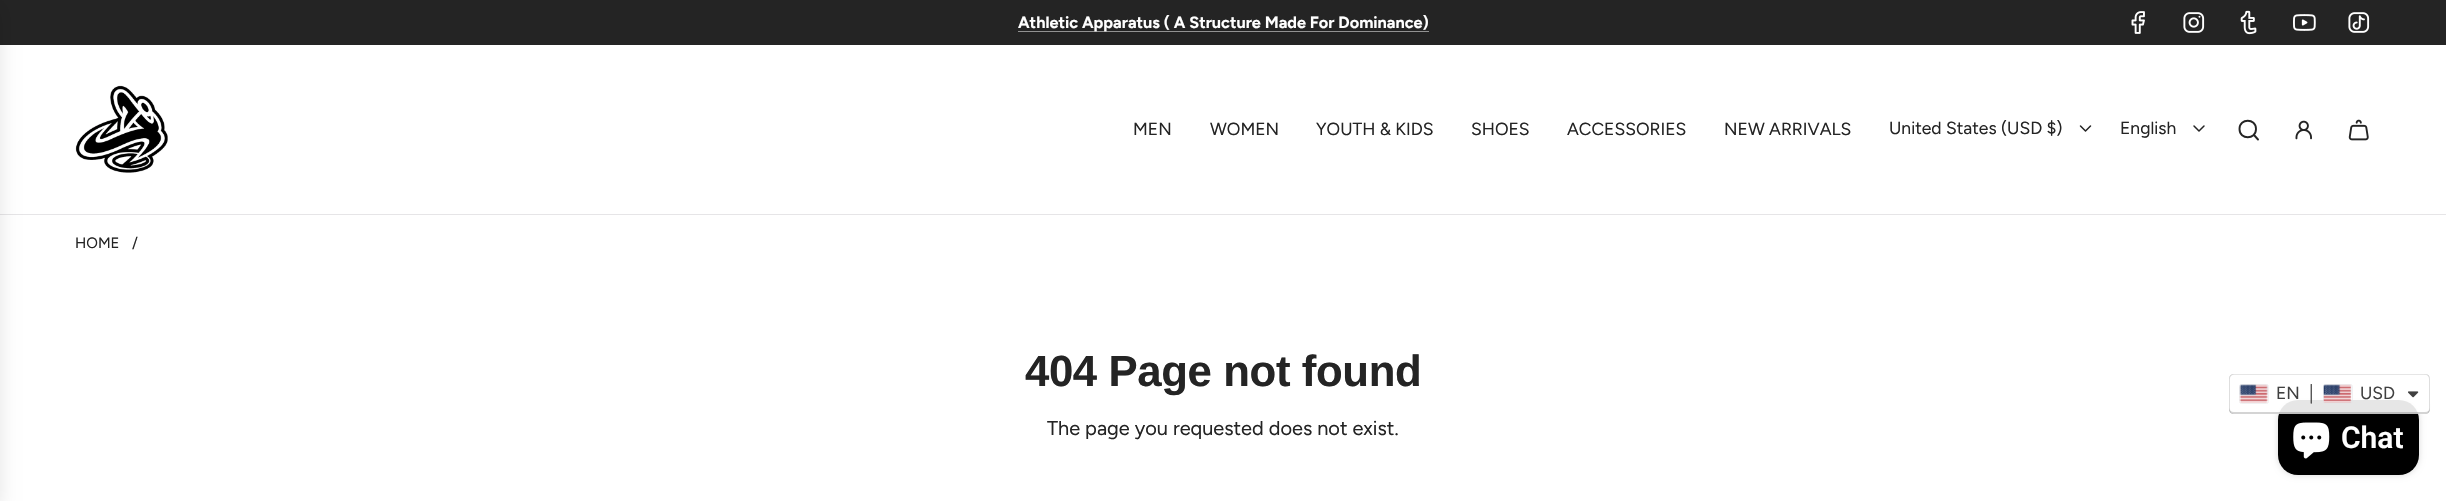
void draw(SkCanvas* canvas) {
  SkPaint paint;
  paint.setAntiAlias(true);
  auto face = [&](const char* family, int weight, float size, bool italic = false) {
    SkFontStyle style(weight, SkFontStyle::kNormal_Width,
      italic ? SkFontStyle::kItalic_Slant : SkFontStyle::kUpright_Slant);
    SkFont result(fontMgr->matchFamilyStyle(family, style), size);
    result.setSubpixel(true);
    return result;
  };
  auto writeSpaced = [&](const char* s, float x, float y, const SkFont& font, const SkPaint& ink, float letter, float word) {
    std::vector<SkGlyphID> glyphs(font.countText(s, strlen(s), SkTextEncoding::kUTF8));
    std::vector<float> xs(glyphs.size());
    font.textToGlyphs(s, strlen(s), SkTextEncoding::kUTF8, glyphs);
    font.getXPos(glyphs, xs, x);
    float extra = 0;
    for (size_t i = 0; i < glyphs.size(); i++) {
      xs[i] += extra;
      extra += letter + word * (glyphs[i] == font.unicharToGlyph(' '));
    }
    canvas->drawTextBlob(SkTextBlob::MakeFromPosHGlyphs(glyphs, xs, y, font), 0, 0, ink);
  };
  auto paste = [&](const char* path, float x, float y, float w, float h) {
    auto image = SkImages::DeferredFromEncodedData(SkData::MakeFromFileName(path));
    canvas->drawImageRect(image, SkRect::MakeXYWH(x, y, w, h), SkSamplingOptions());
  };
  auto shape = [&](const char* data, bool evenOdd = false) {
    SkPath result = *SkParsePath::FromSVGString(data);
    if (evenOdd) result.setFillType(SkPathFillType::kEvenOdd);
    return result;
  };
  canvas->clear(0xffffffff);
  paint.setColor(0xff242424);
  canvas->drawRect(SkRect::MakeXYWH(0, 0, 2446, 45), paint);
  paint.setColor(0xff929292);
  canvas->drawRect(SkRect::MakeXYWH(1018, 31, 411, 1), paint);
  paste("img/1.png", 2131, 11, 14, 23);
  paste("img/2.png", 2183, 12, 22, 21);
  paste("img/3.png", 2240, 10, 17, 25);
  paste("img/4.png", 2293, 14, 23, 17);
  paste("img/5.png", 2348, 12, 22, 21);
  paint.setColor(0xffe6e5e7);
  canvas->drawRect(SkRect::MakeXYWH(0, 214, 2446, 1), paint);
  paint.setColor(0x1a000000);
  paint.setMaskFilter(SkMaskFilter::MakeBlur(kNormal_SkBlurStyle, 9.5f));
  canvas->drawRect(SkRect::MakeXYWH(-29, 6, 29, 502), paint);
  paint.setMaskFilter(nullptr);
  paste("img/6.png", 75, 85, 93, 88);
  paint.setStroke(true);
  paint.setStrokeWidth(1.5f);
  paint.setStrokeCap(SkPaint::kRound_Cap);
  paint.setStrokeJoin(SkPaint::kRound_Join);
  paint.setColor(0xff242424);
  canvas->drawPath(shape("M2080.5 126L2085.5 131L2090.5 126"), paint);
  canvas->drawPath(shape("M2194 126L2199 131L2204 126"), paint);
  paint.setStrokeWidth(1.9f);
  canvas->drawPath(shape("M2254 135L2258 139.5M2239.5 129C2239.5 140 2256 140 2256 129C2256 118 2239.5 118 2239.5 129Z"), paint);
  paste("img/7.png", 2295, 120, 17, 20);
  paste("img/8.png", 2348, 119, 21, 22);
  paint.setStroke(false);
  paint.setColor(0x26000000);
  paint.setMaskFilter(SkMaskFilter::MakeBlur(kNormal_SkBlurStyle, 3));
  canvas->drawRoundRect(SkRect::MakeXYWH(2278, 400, 141, 75), 20, 20, paint);
  paint.setMaskFilter(nullptr);
  paint.setColor(0xff000000);
  canvas->drawRoundRect(SkRect::MakeXYWH(2278, 400, 141, 75), 20, 20, paint);
  paint.setColor(0xe6ffffff);
  canvas->drawRoundRect(SkRect::MakeXYWH(2229, 374, 201, 40), 5, 5, paint);
  paint.setColor(0xffe6e6e6);
  canvas->drawPath(shape("M2234 375H2425C2428 375 2430 377 2430 380V379C2430 376 2428 374 2425 374H2234C2231 374 2229 376 2229 379V380C2229 377 2231 375 2234 375Z"), paint);
  paint.setColor(0x2b000000);
  canvas->drawPath(shape("M2229 408V409C2229 412 2231 414 2234 414H2425C2428 414 2430 412 2430 409V408C2430 410 2428 412 2425 412H2234C2231 412 2229 410 2229 408Z"), paint);
  paint.setColor(0x21000000);
  canvas->drawPath(shape("M2424 414C2431 414 2430 409 2430 404V384C2430 379 2431 374 2424 374C2427 374 2429 376 2429 379V409C2429 412 2427 414 2424 414Z"), paint);
  canvas->drawPath(shape("M2234 374C2231 374 2229 376 2229 379V409C2229 412 2231 414 2234 414H2235C2232 414 2230 412 2230 409V379C2230 376 2232 374 2235 374Z"), paint);
  paint.setStroke(true);
  paint.setStrokeWidth(1);
  paint.setStrokeCap(SkPaint::kButt_Cap);
  paint.setStrokeJoin(SkPaint::kMiter_Join);
  paint.setColor(0xfff0f1f2);
  canvas->drawRoundRect(SkRect::MakeXYWH(2239.5f, 384.5f, 29, 19), 2, 2, paint);
  paste("img/9.png", 2239, 384, 29, 19);
  paste("img/10.png", 2310, 384, 2, 20);
  paint.setColor(0x80e1e3e5);
  canvas->drawRoundRect(SkRect::MakeXYWH(2323.5f, 384.5f, 29, 19), 2, 2, paint);
  paste("img/11.png", 2323, 384, 29, 19);
  paste("img/12.png", 2408, 391, 11, 7);
  paste("img/13.png", 2293, 422, 37, 37);
  auto f0 = face("Figtree", 700, 16.25f);
  paint.setStroke(false);
  paint.setColor(0xffffffff);
  canvas->drawString("Athletic Apparatus ( A Structure Made For Dominance)", 1018, 28, f0, paint);
  auto f1 = face("Figtree", 400, 17.5f);
  paint.setColor(0xff242424);
  {
    const struct { const char* s; float x, y; } items[] = {
      {"MEN", 1133, 135},
      {"WOMEN", 1210, 135},
      {"YOUTH & KIDS", 1316, 135},
      {"SHOES", 1471, 135},
      {"ACCESSORIES", 1567, 135},
      {"NEW ARRIVALS", 1724, 135},
      {"United States (USD $)", 1889, 134},
      {"English", 2120, 134},
    };
    for (auto [s, x, y] : items) {
      canvas->drawString(s, x, y, f1, paint);
    }
  }
  auto f2 = face("Figtree", 400, 15);
  canvas->drawString("HOME", 75, 248, f2, paint);
  canvas->drawString("/", 132, 248, f2, paint);
  auto f3 = face("Liberation Sans", 700, 43.75f);
  writeSpaced("404 Page not found", 1025, 386, f3, paint, -0.4f, 0);
  auto f4 = face("Figtree", 400, 20);
  canvas->drawString("The page you requested does not exist.", 1047, 435, f4, paint);
  paint.setColor(0xff404040);
  canvas->drawString("EN", 2276, 399, f1, paint);
  canvas->drawString("USD", 2360, 399, f1, paint);
  auto f5 = face("Roboto", 600, 30);
  paint.setColor(0xffffffff);
  canvas->drawString("Chat", 2341, 448, f5, paint);
}
